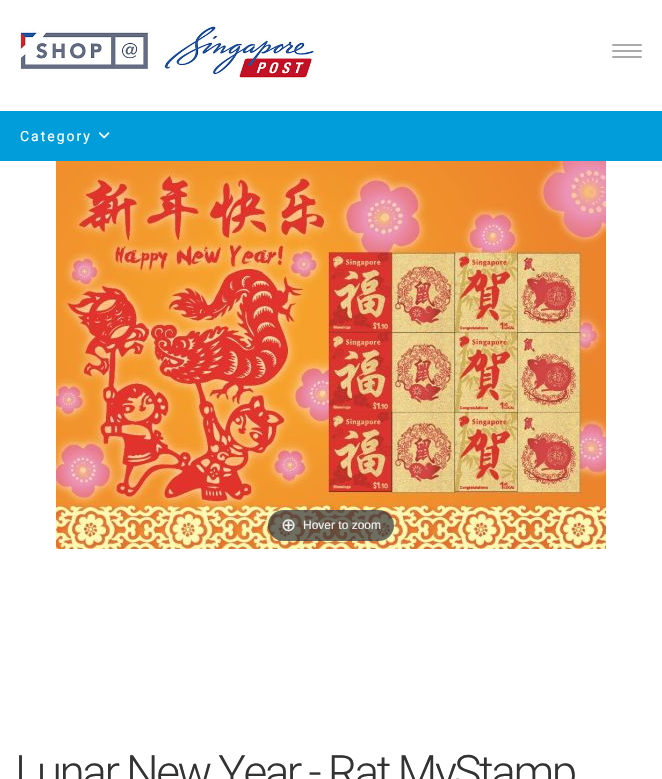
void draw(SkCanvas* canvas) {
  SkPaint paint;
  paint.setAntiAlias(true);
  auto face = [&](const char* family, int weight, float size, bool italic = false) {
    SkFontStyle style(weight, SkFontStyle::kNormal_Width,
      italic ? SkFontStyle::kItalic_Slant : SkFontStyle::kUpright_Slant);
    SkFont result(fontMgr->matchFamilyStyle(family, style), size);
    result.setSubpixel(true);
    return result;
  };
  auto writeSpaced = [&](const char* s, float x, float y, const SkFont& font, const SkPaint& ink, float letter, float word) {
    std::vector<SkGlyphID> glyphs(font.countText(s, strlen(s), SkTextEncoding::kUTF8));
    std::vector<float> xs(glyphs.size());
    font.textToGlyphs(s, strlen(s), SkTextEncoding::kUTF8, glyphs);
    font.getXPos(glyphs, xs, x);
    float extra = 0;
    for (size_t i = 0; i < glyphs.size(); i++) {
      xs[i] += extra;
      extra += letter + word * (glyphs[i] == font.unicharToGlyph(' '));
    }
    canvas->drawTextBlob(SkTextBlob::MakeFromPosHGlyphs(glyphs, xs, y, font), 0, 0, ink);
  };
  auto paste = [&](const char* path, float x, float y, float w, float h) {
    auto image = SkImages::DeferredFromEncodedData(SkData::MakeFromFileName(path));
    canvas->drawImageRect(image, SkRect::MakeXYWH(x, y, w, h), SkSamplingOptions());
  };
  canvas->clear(0xffffffff);
  paste("img/1.png", 20, 25, 295, 56);
  paint.setColor(0xffaaaaaa);
  canvas->drawRoundRect(SkRect::MakeXYWH(612, 44, 30, 2), 1, 1, paint);
  canvas->drawRoundRect(SkRect::MakeXYWH(612, 50, 30, 2), 1, 1, paint);
  canvas->drawRoundRect(SkRect::MakeXYWH(612, 56, 30, 2), 1, 1, paint);
  paint.setColor(0xff009ddb);
  canvas->drawRect(SkRect::MakeXYWH(0, 111, 662, 50), paint);
  paste("img/2.png", 98, 132, 12, 7);
  paste("img/3.png", 56, 161, 550, 388);
  paint.setColor(0xb331333d);
  canvas->drawRoundRect(SkRect::MakeXYWH(268, 510, 126, 31), 15.5f, 15.5f, paint);
  auto f0 = face("Roboto", 400, 14);
  paint.setColor(0xffffffff);
  writeSpaced("Category", 20, 141, f0, paint, 2, 0);
  auto f1 = face("DejaVu Sans", 400, 18);
  paint.setColor(0xffeeeeee);
  canvas->drawString("⊕", 281, 531, f1, paint);
  auto f2 = face("Liberation Sans", 400, 12);
  canvas->drawString("Hover to zoom", 303, 529, f2, paint);
  auto f3 = face("Roboto", 300, 46);
  paint.setColor(0xff333333);
  writeSpaced("Lunar New Year - Rat MyStamp", 15, 788, f3, paint, -2.5f, 0);
}
